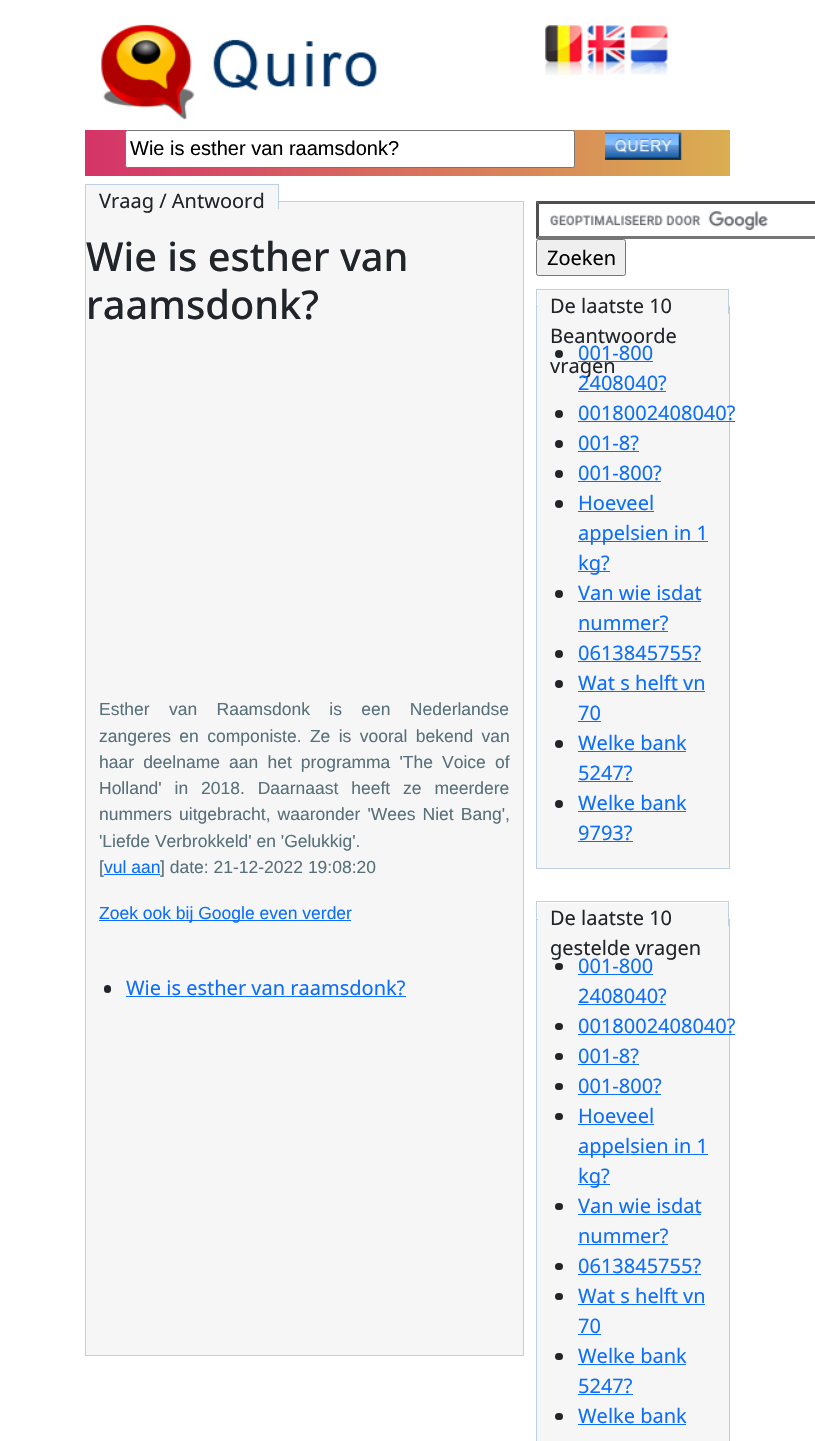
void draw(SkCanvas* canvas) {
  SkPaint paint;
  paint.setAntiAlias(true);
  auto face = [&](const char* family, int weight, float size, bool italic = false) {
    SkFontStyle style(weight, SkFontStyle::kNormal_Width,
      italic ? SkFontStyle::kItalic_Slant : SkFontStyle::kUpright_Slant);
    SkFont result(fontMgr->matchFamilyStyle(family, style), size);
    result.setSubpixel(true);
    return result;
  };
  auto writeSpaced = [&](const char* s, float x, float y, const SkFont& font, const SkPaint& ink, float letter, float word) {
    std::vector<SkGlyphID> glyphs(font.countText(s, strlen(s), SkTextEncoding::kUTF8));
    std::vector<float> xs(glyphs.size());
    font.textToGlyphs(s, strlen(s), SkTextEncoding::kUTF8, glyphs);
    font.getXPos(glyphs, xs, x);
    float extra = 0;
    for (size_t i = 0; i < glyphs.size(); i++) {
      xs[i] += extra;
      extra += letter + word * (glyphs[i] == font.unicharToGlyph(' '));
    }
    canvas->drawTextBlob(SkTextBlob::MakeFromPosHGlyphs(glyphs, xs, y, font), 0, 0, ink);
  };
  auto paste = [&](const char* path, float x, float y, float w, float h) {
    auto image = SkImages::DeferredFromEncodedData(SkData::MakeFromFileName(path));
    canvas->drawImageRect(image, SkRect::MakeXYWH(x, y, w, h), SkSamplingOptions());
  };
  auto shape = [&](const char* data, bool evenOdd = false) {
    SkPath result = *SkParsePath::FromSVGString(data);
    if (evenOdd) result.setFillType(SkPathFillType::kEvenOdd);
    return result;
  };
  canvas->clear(0xffffffff);
  paste("img/1.png", 101, 24, 276, 96);
  paste("img/2.png", 545, 25, 38, 50);
  paste("img/3.png", 587, 25, 38, 50);
  paste("img/4.png", 630, 25, 38, 50);
  {
    const SkColor colors[] = {0xffd53369, 0xffdaae51};
    const float stops[] = {0, 1};
    const SkPoint ends[] = {{85, 153}, {730, 153}};
    paint.setShader(SkGradientShader::MakeLinear(ends, colors, stops, 2, SkTileMode::kClamp));
    paint.setAlpha(255);
  }
  canvas->drawRect(SkRect::MakeXYWH(85, 130, 645, 46), paint);
  paint.setShader(nullptr);
  paint.setColor(0xffffffff);
  canvas->drawRoundRect(SkRect::MakeXYWH(125.5f, 130.5f, 449, 37), 2, 2, paint);
  paint.setStroke(true);
  paint.setStrokeWidth(1);
  paint.setColor(0xff767676);
  canvas->drawRoundRect(SkRect::MakeXYWH(125.5f, 130.5f, 449, 37), 2, 2, paint);
  paste("img/5.png", 605, 132, 77, 28);
  paint.setStroke(false);
  paint.setColor(0xfff6f6f6);
  canvas->drawRect(SkRect::MakeXYWH(85.5f, 201.5f, 438, 1154), paint);
  paint.setStroke(true);
  paint.setColor(0xffbed0e4);
  canvas->drawRect(SkRect::MakeXYWH(85.5f, 201.5f, 438, 1154), paint);
  paint.setStroke(false);
  {
    const struct { float x, y, w, h; SkColor color; } items[] = {
      {86, 185, 192, 17, 0xfff6f6f6},
      {85, 184, 194, 1, 0xffbed0e4},
      {278, 184, 1, 25, 0xffbed0e4},
      {85, 184, 1, 25, 0xffbed0e4},
      {104, 874, 56, 1, 0xff0d6efd},
      {99, 920, 252, 1, 0xff0d6efd},
    };
    for (auto [x, y, w, h, color] : items) {
      paint.setColor(color);
      canvas->drawRect(SkRect::MakeXYWH(x, y, w, h), paint);
    }
  }
  paint.setColor(0xff212529);
  canvas->drawRoundRect(SkRect::MakeXYWH(104, 985, 7, 8), 3.5f, 3.5f, paint);
  paint.setColor(0xff0d6efd);
  canvas->drawRect(SkRect::MakeXYWH(126, 996, 280, 1), paint);
  paste("img/6.png", 550, 211, 218, 19);
  paint.setColor(0xff4f4f4f);
  canvas->drawPath(shape("M536 201H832L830 204H539Z"), paint);
  paint.setColor(0xff767676);
  canvas->drawPath(shape("M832 239H536L539 236H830Z"), paint);
  paint.setColor(0xff4f4f4f);
  canvas->drawPath(shape("M536 239V201L539 204V236Z"), paint);
  paint.setColor(0xffefefef);
  canvas->drawRoundRect(SkRect::MakeXYWH(536.5f, 239.5f, 89, 36), 2, 2, paint);
  paint.setStroke(true);
  paint.setColor(0xff767676);
  canvas->drawRoundRect(SkRect::MakeXYWH(536.5f, 239.5f, 89, 36), 2, 2, paint);
  paint.setStroke(false);
  paint.setColor(0xfff6f6f6);
  canvas->drawRect(SkRect::MakeXYWH(536.5f, 306.5f, 193, 562), paint);
  paint.setStroke(true);
  paint.setColor(0xffbed0e4);
  canvas->drawRect(SkRect::MakeXYWH(536.5f, 306.5f, 193, 562), paint);
  paint.setStroke(false);
  {
    const struct { float x, y, w, h; SkColor color; } items[] = {
      {538, 290, 190, 17, 0xfff6f6f6},
      {536, 289, 193, 1, 0xffbed0e4},
      {728, 289, 1, 25, 0xffbed0e4},
      {536, 289, 1, 25, 0xffbed0e4},
    };
    for (auto [x, y, w, h, color] : items) {
      paint.setColor(color);
      canvas->drawRect(SkRect::MakeXYWH(x, y, w, h), paint);
    }
  }
  paint.setColor(0xff212529);
  canvas->drawCircle(559, 354, 4, paint);
  paint.setColor(0xff0d6efd);
  canvas->drawRect(SkRect::MakeXYWH(578, 361, 75, 1), paint);
  canvas->drawRect(SkRect::MakeXYWH(578, 391, 88, 1), paint);
  paint.setColor(0xff212529);
  canvas->drawCircle(559, 414, 4, paint);
  paint.setColor(0xff0d6efd);
  canvas->drawRect(SkRect::MakeXYWH(578, 421, 157, 1), paint);
  paint.setColor(0xff212529);
  canvas->drawCircle(559, 444, 4, paint);
  paint.setColor(0xff0d6efd);
  canvas->drawRect(SkRect::MakeXYWH(578, 451, 61, 1), paint);
  paint.setColor(0xff212529);
  canvas->drawCircle(559, 474, 4, paint);
  paint.setColor(0xff0d6efd);
  canvas->drawRect(SkRect::MakeXYWH(578, 481, 83, 1), paint);
  paint.setColor(0xff212529);
  canvas->drawCircle(559, 504, 4, paint);
  {
    const struct { float x, y, w, h; SkColor color; } items[] = {
      {578, 511, 76, 1, 0xff0d6efd},
      {578, 541, 130, 1, 0xff0d6efd},
      {578, 571, 32, 1, 0xff0d6efd},
    };
    for (auto [x, y, w, h, color] : items) {
      paint.setColor(color);
      canvas->drawRect(SkRect::MakeXYWH(x, y, w, h), paint);
    }
  }
  paint.setColor(0xff212529);
  canvas->drawCircle(559, 594, 4, paint);
  paint.setColor(0xff0d6efd);
  canvas->drawRect(SkRect::MakeXYWH(578, 601, 123, 1), paint);
  canvas->drawRect(SkRect::MakeXYWH(578, 631, 90, 1), paint);
  paint.setColor(0xff212529);
  canvas->drawCircle(559, 654, 4, paint);
  paint.setColor(0xff0d6efd);
  canvas->drawRect(SkRect::MakeXYWH(578, 661, 123, 1), paint);
  paint.setColor(0xff212529);
  canvas->drawCircle(559, 684, 4, paint);
  paint.setColor(0xff0d6efd);
  canvas->drawRect(SkRect::MakeXYWH(578, 691, 127, 1), paint);
  canvas->drawRect(SkRect::MakeXYWH(578, 721, 23, 1), paint);
  paint.setColor(0xff212529);
  canvas->drawCircle(559, 744, 4, paint);
  paint.setColor(0xff0d6efd);
  canvas->drawRect(SkRect::MakeXYWH(578, 751, 108, 1), paint);
  canvas->drawRect(SkRect::MakeXYWH(578, 781, 55, 1), paint);
  paint.setColor(0xff212529);
  canvas->drawCircle(559, 804, 4, paint);
  paint.setColor(0xff0d6efd);
  canvas->drawRect(SkRect::MakeXYWH(578, 811, 108, 1), paint);
  canvas->drawRect(SkRect::MakeXYWH(578, 841, 55, 1), paint);
  paint.setColor(0xfff6f6f6);
  canvas->drawRect(SkRect::MakeXYWH(536.5f, 919.5f, 193, 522), paint);
  paint.setStroke(true);
  paint.setColor(0xffbed0e4);
  canvas->drawRect(SkRect::MakeXYWH(536.5f, 919.5f, 193, 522), paint);
  paint.setStroke(false);
  {
    const struct { float x, y, w, h; SkColor color; } items[] = {
      {538, 903, 190, 17, 0xfff6f6f6},
      {536, 901, 193, 1, 0xffbed0e4},
      {728, 901, 1, 25, 0xffbed0e4},
      {536, 901, 1, 25, 0xffbed0e4},
    };
    for (auto [x, y, w, h, color] : items) {
      paint.setColor(color);
      canvas->drawRect(SkRect::MakeXYWH(x, y, w, h), paint);
    }
  }
  paint.setColor(0xff212529);
  canvas->drawRoundRect(SkRect::MakeXYWH(555, 963, 8, 7), 3.5f, 3.5f, paint);
  paint.setColor(0xff0d6efd);
  canvas->drawRect(SkRect::MakeXYWH(578, 974, 75, 1), paint);
  canvas->drawRect(SkRect::MakeXYWH(578, 1004, 88, 1), paint);
  paint.setColor(0xff212529);
  canvas->drawRoundRect(SkRect::MakeXYWH(555, 1023, 8, 7), 3.5f, 3.5f, paint);
  paint.setColor(0xff0d6efd);
  canvas->drawRect(SkRect::MakeXYWH(578, 1034, 157, 1), paint);
  paint.setColor(0xff212529);
  canvas->drawRoundRect(SkRect::MakeXYWH(555, 1053, 8, 7), 3.5f, 3.5f, paint);
  paint.setColor(0xff0d6efd);
  canvas->drawRect(SkRect::MakeXYWH(578, 1064, 61, 1), paint);
  paint.setColor(0xff212529);
  canvas->drawRoundRect(SkRect::MakeXYWH(555, 1083, 8, 7), 3.5f, 3.5f, paint);
  paint.setColor(0xff0d6efd);
  canvas->drawRect(SkRect::MakeXYWH(578, 1094, 83, 1), paint);
  paint.setColor(0xff212529);
  canvas->drawRoundRect(SkRect::MakeXYWH(555, 1113, 8, 7), 3.5f, 3.5f, paint);
  {
    const struct { float x, y, w, h; SkColor color; } items[] = {
      {578, 1124, 76, 1, 0xff0d6efd},
      {578, 1154, 130, 1, 0xff0d6efd},
      {578, 1184, 32, 1, 0xff0d6efd},
    };
    for (auto [x, y, w, h, color] : items) {
      paint.setColor(color);
      canvas->drawRect(SkRect::MakeXYWH(x, y, w, h), paint);
    }
  }
  paint.setColor(0xff212529);
  canvas->drawRoundRect(SkRect::MakeXYWH(555, 1203, 8, 7), 3.5f, 3.5f, paint);
  paint.setColor(0xff0d6efd);
  canvas->drawRect(SkRect::MakeXYWH(578, 1214, 123, 1), paint);
  canvas->drawRect(SkRect::MakeXYWH(578, 1244, 90, 1), paint);
  paint.setColor(0xff212529);
  canvas->drawRoundRect(SkRect::MakeXYWH(555, 1263, 8, 7), 3.5f, 3.5f, paint);
  paint.setColor(0xff0d6efd);
  canvas->drawRect(SkRect::MakeXYWH(578, 1274, 123, 1), paint);
  paint.setColor(0xff212529);
  canvas->drawRoundRect(SkRect::MakeXYWH(555, 1293, 8, 7), 3.5f, 3.5f, paint);
  paint.setColor(0xff0d6efd);
  canvas->drawRect(SkRect::MakeXYWH(578, 1304, 127, 1), paint);
  canvas->drawRect(SkRect::MakeXYWH(578, 1334, 23, 1), paint);
  paint.setColor(0xff212529);
  canvas->drawRoundRect(SkRect::MakeXYWH(555, 1353, 8, 7), 3.5f, 3.5f, paint);
  paint.setColor(0xff0d6efd);
  canvas->drawRect(SkRect::MakeXYWH(578, 1364, 108, 1), paint);
  canvas->drawRect(SkRect::MakeXYWH(578, 1394, 55, 1), paint);
  paint.setColor(0xff212529);
  canvas->drawRoundRect(SkRect::MakeXYWH(555, 1413, 8, 7), 3.5f, 3.5f, paint);
  paint.setColor(0xff0d6efd);
  canvas->drawRect(SkRect::MakeXYWH(578, 1424, 108, 1), paint);
  auto f0 = face("Liberation Sans", 400, 20);
  paint.setColor(0xff000000);
  canvas->drawString("Wie is esther van raamsdonk?", 130, 155, f0, paint);
  auto f1 = face("Noto Sans", 400, 20);
  paint.setColor(0xff212529);
  canvas->drawString("Vraag / Antwoord", 99, 208, f1, paint);
  auto f2 = face("Noto Sans", 500, 39.75f);
  canvas->drawString("Wie is esther van", 86, 271, f2, paint);
  canvas->drawString("raamsdonk?", 86, 319, f2, paint);
  auto f3 = face("Liberation Sans", 400, 17.5f);
  paint.setColor(0xff57707a);
  writeSpaced("Esther van Raamsdonk is een Nederlandse", 99, 715, f3, paint, 0, 14.5f);
  writeSpaced("zangeres en componiste. Ze is vooral bekend van", 99, 742, f3, paint, 0, 3.5f);
  writeSpaced("haar deelname aan het programma 'The Voice of", 99, 768, f3, paint, 0, 4.25f);
  writeSpaced("Holland' in 2018. Daarnaast heeft ze meerdere", 99, 794, f3, paint, 0, 8);
  writeSpaced("nummers uitgebracht, waaronder 'Wees Niet Bang',", 99, 820, f3, paint, 0, 2.25f);
  canvas->drawString("'Liefde Verbrokkeld' en 'Gelukkig'.", 99, 847, f3, paint);
  canvas->drawString("[", 99, 873, f3, paint);
  paint.setColor(0xff0d6efd);
  canvas->drawString("vul aan", 104, 873, f3, paint);
  paint.setColor(0xff57707a);
  canvas->drawString("] date: 21-12-2022 19:08:20", 160, 873, f3, paint);
  paint.setColor(0xff0d6efd);
  canvas->drawString("Zoek ook bij Google even verder", 99, 919, f3, paint);
  canvas->drawString("Wie is esther van raamsdonk?", 126, 995, f1, paint);
  paint.setColor(0xff000000);
  canvas->drawString("Zoeken", 547, 265, f1, paint);
  paint.setColor(0xff212529);
  {
    const struct { const char* s; float x, y; } items[] = {
      {"De laatste 10", 550, 313},
      {"Beantwoorde", 550, 343},
      {"vragen", 550, 373},
    };
    for (auto [s, x, y] : items) {
      canvas->drawString(s, x, y, f1, paint);
    }
  }
  paint.setColor(0xff0d6efd);
  {
    const struct { const char* s; float x, y; } items[] = {
      {"001-800", 578, 360},
      {"2408040?", 578, 390},
      {"0018002408040?", 578, 420},
      {"001-8?", 578, 450},
      {"001-800?", 578, 480},
      {"Hoeveel", 578, 510},
      {"appelsien in 1", 578, 540},
      {"kg?", 578, 570},
      {"Van wie isdat", 578, 600},
      {"nummer?", 578, 630},
      {"0613845755?", 578, 660},
      {"Wat s helft vn", 578, 690},
      {"70", 578, 720},
      {"Welke bank", 578, 750},
      {"5247?", 578, 780},
      {"Welke bank", 578, 810},
      {"9793?", 578, 840},
    };
    for (auto [s, x, y] : items) {
      canvas->drawString(s, x, y, f1, paint);
    }
  }
  paint.setColor(0xff212529);
  canvas->drawString("De laatste 10", 550, 925, f1, paint);
  canvas->drawString("gestelde vragen", 550, 955, f1, paint);
  paint.setColor(0xff0d6efd);
  {
    const struct { const char* s; float x, y; } items[] = {
      {"001-800", 578, 973},
      {"2408040?", 578, 1003},
      {"0018002408040?", 578, 1033},
      {"001-8?", 578, 1063},
      {"001-800?", 578, 1093},
      {"Hoeveel", 578, 1123},
      {"appelsien in 1", 578, 1153},
      {"kg?", 578, 1183},
      {"Van wie isdat", 578, 1213},
      {"nummer?", 578, 1243},
      {"0613845755?", 578, 1273},
      {"Wat s helft vn", 578, 1303},
      {"70", 578, 1333},
      {"Welke bank", 578, 1363},
      {"5247?", 578, 1393},
      {"Welke bank", 578, 1423},
    };
    for (auto [s, x, y] : items) {
      canvas->drawString(s, x, y, f1, paint);
    }
  }
}
